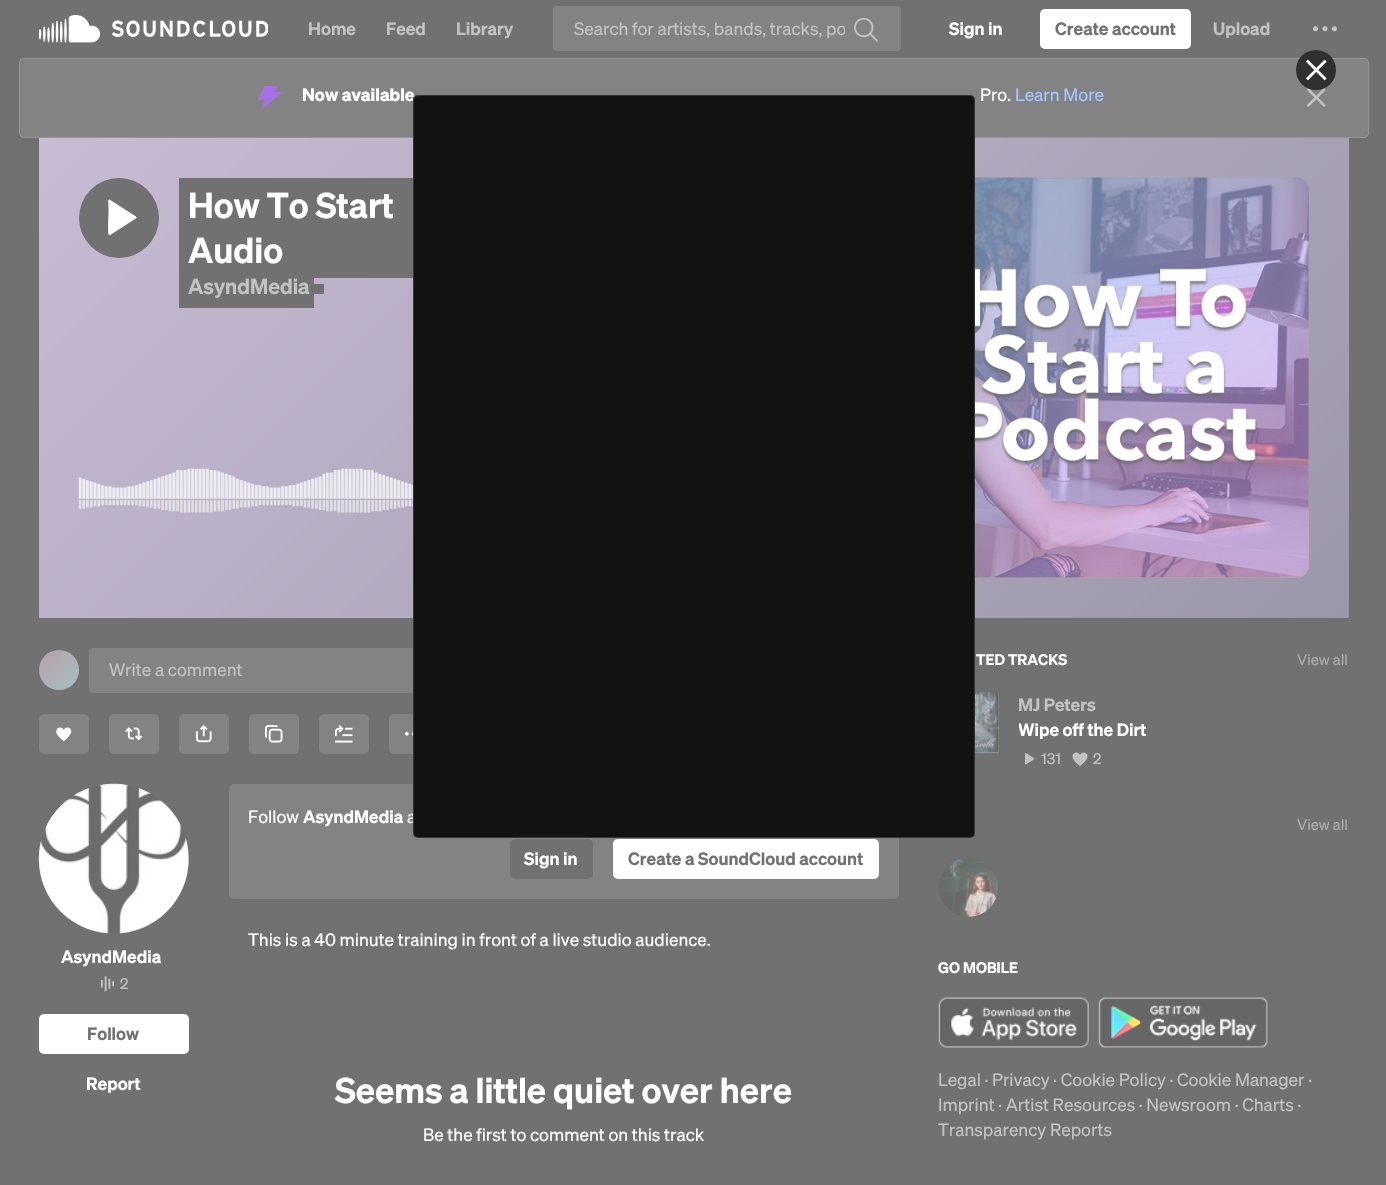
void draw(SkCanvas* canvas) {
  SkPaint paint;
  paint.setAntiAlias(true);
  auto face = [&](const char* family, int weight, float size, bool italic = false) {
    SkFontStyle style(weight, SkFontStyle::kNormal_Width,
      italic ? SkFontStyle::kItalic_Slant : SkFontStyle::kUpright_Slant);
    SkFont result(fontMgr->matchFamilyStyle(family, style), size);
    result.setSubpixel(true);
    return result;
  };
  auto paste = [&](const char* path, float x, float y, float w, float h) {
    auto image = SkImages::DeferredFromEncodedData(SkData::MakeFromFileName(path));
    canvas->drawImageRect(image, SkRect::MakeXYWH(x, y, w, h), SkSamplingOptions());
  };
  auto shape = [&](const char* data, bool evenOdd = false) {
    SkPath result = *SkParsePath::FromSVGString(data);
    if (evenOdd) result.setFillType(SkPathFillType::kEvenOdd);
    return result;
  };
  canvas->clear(0xff717171);
  paste("img/1.png", 39, 15, 229, 28);
  paint.setColor(0xff838383);
  canvas->drawRoundRect(SkRect::MakeXYWH(553, 6, 348, 45), 4, 4, paint);
  paste("img/2.png", 854, 17, 24, 25);
  paint.setColor(0xffffffff);
  canvas->drawRoundRect(SkRect::MakeXYWH(1040, 9, 151, 40), 5, 5, paint);
  paste("img/3.png", 1313, 26, 24, 6);
  paint.setColor(0xff838383);
  canvas->drawRoundRect(SkRect::MakeXYWH(19, 58, 1350, 80), 5, 5, paint);
  paint.setStroke(true);
  paint.setStrokeWidth(1);
  paint.setColor(0x26ffffff);
  canvas->drawRoundRect(SkRect::MakeXYWH(19.5f, 58.5f, 1349, 79), 4.5f, 4.5f, paint);
  paint.setStroke(false);
  paint.setColor(0xffa771e4);
  canvas->drawPath(shape("M264.5 86L257.5 100H264L261.5 110L282 92H274L277.5 86Z"), paint);
  paste("img/4.png", 1306, 88, 20, 19);
  {
    const SkColor colors[] = {0xffc8bbd4, 0xff9b97aa};
    const float stops[] = {0, 1};
    const SkPoint ends[] = {{246, -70}, {1141, 825}};
    paint.setShader(SkGradientShader::MakeLinear(ends, colors, stops, 2, SkTileMode::kClamp));
    paint.setAlpha(255);
  }
  canvas->drawRect(SkRect::MakeXYWH(39, 138, 1310, 480), paint);
  paint.setShader(nullptr);
  paint.setColor(0xff717171);
  canvas->drawCircle(119, 218, 40, paint);
  paint.setColor(0xffffffff);
  canvas->drawPath(shape("M136 216.5C136.5 217 136.5 217.5 136.5 218L109.5 235.5L109 235C107.5 234.5 108.5 214.5 108.5 212V206.5C108.5 202.5 107.5 199 109.5 199.5Z", true), paint);
  {
    const struct { float x, y, w, h; SkColor color; } items[] = {
      {179, 178, 234, 100, 0xff717171},
      {179, 278, 135, 30, 0xff717171},
      {314, 284, 10, 10, 0xff717171},
    };
    for (auto [x, y, w, h, color] : items) {
      paint.setColor(color);
      canvas->drawRect(SkRect::MakeXYWH(x, y, w, h), paint);
    }
  }
  {
    const SkColor colors[] = {0xffa9bec4, 0xfff0b5a8};
    const float stops[] = {0, 1};
    const SkPoint ends[] = {{909, 178}, {1309, 578}};
    paint.setShader(SkGradientShader::MakeLinear(ends, colors, stops, 2, SkTileMode::kClamp));
    paint.setAlpha(255);
  }
  canvas->drawRoundRect(SkRect::MakeXYWH(909, 178, 400, 400), 13, 13, paint);
  paste("img/5.png", 975, 177, 334, 401);
  paint.setStroke(true);
  paint.setShader(nullptr);
  paint.setColor(0x1a717171);
  canvas->drawRoundRect(SkRect::MakeXYWH(909.5f, 178.5f, 399, 399), 12.5f, 12.5f, paint);
  paste("img/6.png", 78, 468, 335, 45);
  paint.setStroke(false);
  {
    const SkColor colors[] = {0xffb5a0a9, 0xffa9bec4};
    const float stops[] = {0, 1};
    const SkPoint ends[] = {{39, 650}, {79, 690}};
    paint.setShader(SkGradientShader::MakeLinear(ends, colors, stops, 2, SkTileMode::kClamp));
    paint.setAlpha(255);
  }
  canvas->drawCircle(59, 670, 20, paint);
  paint.setShader(nullptr);
  paint.setColor(0xff838383);
  canvas->drawRoundRect(SkRect::MakeXYWH(89, 648, 720, 45), 4, 4, paint);
  canvas->drawRoundRect(SkRect::MakeXYWH(39, 714, 50, 40), 5, 5, paint);
  paste("img/7.png", 56, 727, 16, 15);
  canvas->drawRoundRect(SkRect::MakeXYWH(109, 714, 50, 40), 5, 5, paint);
  paste("img/8.png", 125, 727, 18, 14);
  canvas->drawRoundRect(SkRect::MakeXYWH(179, 714, 50, 40), 5, 5, paint);
  paste("img/9.png", 195, 725, 17, 18);
  canvas->drawRoundRect(SkRect::MakeXYWH(249, 714, 50, 40), 5, 5, paint);
  paste("img/10.png", 265, 725, 18, 18);
  canvas->drawRoundRect(SkRect::MakeXYWH(319, 714, 50, 40), 5, 5, paint);
  paste("img/11.png", 335, 725, 18, 18);
  canvas->drawRoundRect(SkRect::MakeXYWH(389, 714, 50, 40), 5, 5, paint);
  paste("img/12.png", 405, 731, 8, 5);
  paste("img/13.png", 38, 783, 151, 151);
  paint.setStroke(true);
  paint.setColor(0x1a717171);
  canvas->drawCircle(114, 859, 74.5f, paint);
  paste("img/14.png", 100, 976, 15, 16);
  paint.setStroke(false);
  paint.setColor(0xffffffff);
  canvas->drawRoundRect(SkRect::MakeXYWH(39, 1014, 150, 40), 5, 5, paint);
  paint.setColor(0xff838383);
  canvas->drawRoundRect(SkRect::MakeXYWH(229, 784, 670, 115), 5, 5, paint);
  paint.setColor(0xff717171);
  canvas->drawRoundRect(SkRect::MakeXYWH(510, 839, 83, 40), 5, 5, paint);
  paint.setColor(0xffffffff);
  canvas->drawRoundRect(SkRect::MakeXYWH(613, 839, 266, 40), 5, 5, paint);
  {
    const SkColor colors[] = {0xffbbb5b6, 0xffa9bec4};
    const float stops[] = {0, 1};
    const SkPoint ends[] = {{939, 693}, {999, 753}};
    paint.setShader(SkGradientShader::MakeLinear(ends, colors, stops, 2, SkTileMode::kClamp));
    paint.setAlpha(255);
  }
  canvas->drawRoundRect(SkRect::MakeXYWH(939, 693, 60, 60), 2, 2, paint);
  paste("img/15.png", 975, 692, 24, 61);
  paint.setStroke(true);
  paint.setShader(nullptr);
  paint.setColor(0x1a717171);
  canvas->drawRoundRect(SkRect::MakeXYWH(939.5f, 693.5f, 59, 59), 1.5f, 1.5f, paint);
  paste("img/16.png", 1025, 753, 10, 12);
  paste("img/17.png", 1072, 752, 16, 15);
  paste("img/18.png", 939, 858, 59, 59);
  paint.setStrokeWidth(3);
  paint.setColor(0xff717171);
  canvas->drawCircle(968.5f, 887.5f, 31, paint);
  paste("img/19.png", 938, 997, 151, 51);
  paste("img/20.png", 1098, 997, 170, 51);
  paint.setStroke(false);
  paint.setColor(0xff303030);
  canvas->drawCircle(1316, 70, 20, paint);
  paste("img/21.png", 1306, 59, 21, 22);
  auto f0 = face("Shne", 600, 17.5f);
  paint.setColor(0xffc2c2c2);
  {
    const struct { const char* s; float x, y; } items[] = {
      {"Home", 308, 35},
      {"Feed", 386, 35},
      {"Library", 456, 35},
    };
    for (auto [s, x, y] : items) {
      canvas->drawString(s, x, y, f0, paint);
    }
  }
  canvas->save();
  canvas->clipRect(SkRect::MakeXYWH(574, 15, 271, 28));
  auto f1 = face("Shne", 400, 17.5f);
  canvas->drawString("Search for artists, bands, tracks, po", 574, 35, f1, paint);
  canvas->restore();
  paint.setColor(0xffffffff);
  canvas->drawString("Sign in", 949, 35, f0, paint);
  paint.setColor(0xff717171);
  canvas->drawString("Create account", 1055, 35, f0, paint);
  paint.setColor(0xffc2c2c2);
  canvas->drawString("Upload", 1213, 35, f0, paint);
  auto f2 = face("Shne", 700, 17.5f);
  paint.setColor(0xffffffff);
  canvas->drawString("Now available", 302, 101, f2, paint);
  canvas->drawString("Pro.", 980, 101, f1, paint);
  paint.setColor(0xffa5c5ff);
  canvas->drawString("Learn More", 1015, 101, f1, paint);
  auto f3 = face("Shne", 600, 35);
  paint.setColor(0xffffffff);
  canvas->drawString("How To Start", 188, 218, f3, paint);
  canvas->drawString("Audio", 188, 263, f3, paint);
  auto f4 = face("Shne", 600, 21.25f);
  paint.setColor(0xffc2c2c2);
  canvas->drawString("AsyndMedia", 188, 294, f4, paint);
  canvas->drawString("Write a comment", 109, 676, f1, paint);
  paint.setColor(0xffffffff);
  canvas->drawString("AsyndMedia", 61, 963, f0, paint);
  auto f5 = face("Shne", 400, 15);
  paint.setColor(0xffc2c2c2);
  canvas->drawString("2", 120, 989, f5, paint);
  paint.setColor(0xff717171);
  canvas->drawString("Follow", 87, 1040, f0, paint);
  paint.setColor(0xffffffff);
  canvas->drawString("Report", 86, 1090, f0, paint);
  canvas->drawString("Follow", 248, 823, f1, paint);
  canvas->drawString("AsyndMedia", 303, 823, f0, paint);
  canvas->drawString("a", 407, 823, f1, paint);
  canvas->drawString("Sign in", 524, 865, f0, paint);
  paint.setColor(0xff717171);
  canvas->drawString("Create a SoundCloud account", 628, 865, f0, paint);
  paint.setColor(0xffffffff);
  canvas->drawString("This is a 40 minute training in front of a live studio audience.", 248, 946, f1, paint);
  canvas->drawString("Seems a little quiet over here", 335, 1103, f3, paint);
  canvas->drawString("Be the first to comment on this track", 423, 1141, f1, paint);
  auto f6 = face("Shne", 600, 15);
  canvas->drawString("TED TRACKS", 976, 665, f6, paint);
  paint.setColor(0xffacacac);
  canvas->drawString("View all", 1297, 665, f5, paint);
  paint.setColor(0xffc2c2c2);
  canvas->drawString("MJ Peters", 1018, 711, f0, paint);
  canvas->save();
  canvas->clipRect(SkRect::MakeXYWH(1019, 718, 127, 25));
  paint.setColor(0xffffffff);
  canvas->drawString("Wipe off the Dirt", 1018, 736, f0, paint);
  canvas->restore();
  paint.setColor(0xffc2c2c2);
  canvas->drawString("131", 1041, 764, f5, paint);
  canvas->drawString("2", 1093, 764, f5, paint);
  paint.setColor(0xffacacac);
  canvas->drawString("View all", 1297, 830, f5, paint);
  paint.setColor(0xffffffff);
  canvas->drawString("GO MOBILE", 938, 973, f6, paint);
  paint.setColor(0xffc2c2c2);
  {
    const struct { const char* s; float x, y; } items[] = {
      {"Legal · Privacy · Cookie Policy · Cookie Manager ·", 938, 1086},
      {"Imprint · Artist Resources · Newsroom · Charts ·", 938, 1111},
      {"Transparency Reports", 938, 1136},
    };
    for (auto [s, x, y] : items) {
      canvas->drawString(s, x, y, f1, paint);
    }
  }
  paint.setColor(0xff121212);
  canvas->drawRoundRect(SkRect::MakeXYWH(413, 95, 562, 743), 5, 5, paint);
  paint.setStroke(true);
  paint.setStrokeWidth(1);
  paint.setColor(0x26ffffff);
  canvas->drawRoundRect(SkRect::MakeXYWH(413.5f, 95.5f, 561, 742), 4.5f, 4.5f, paint);
}
